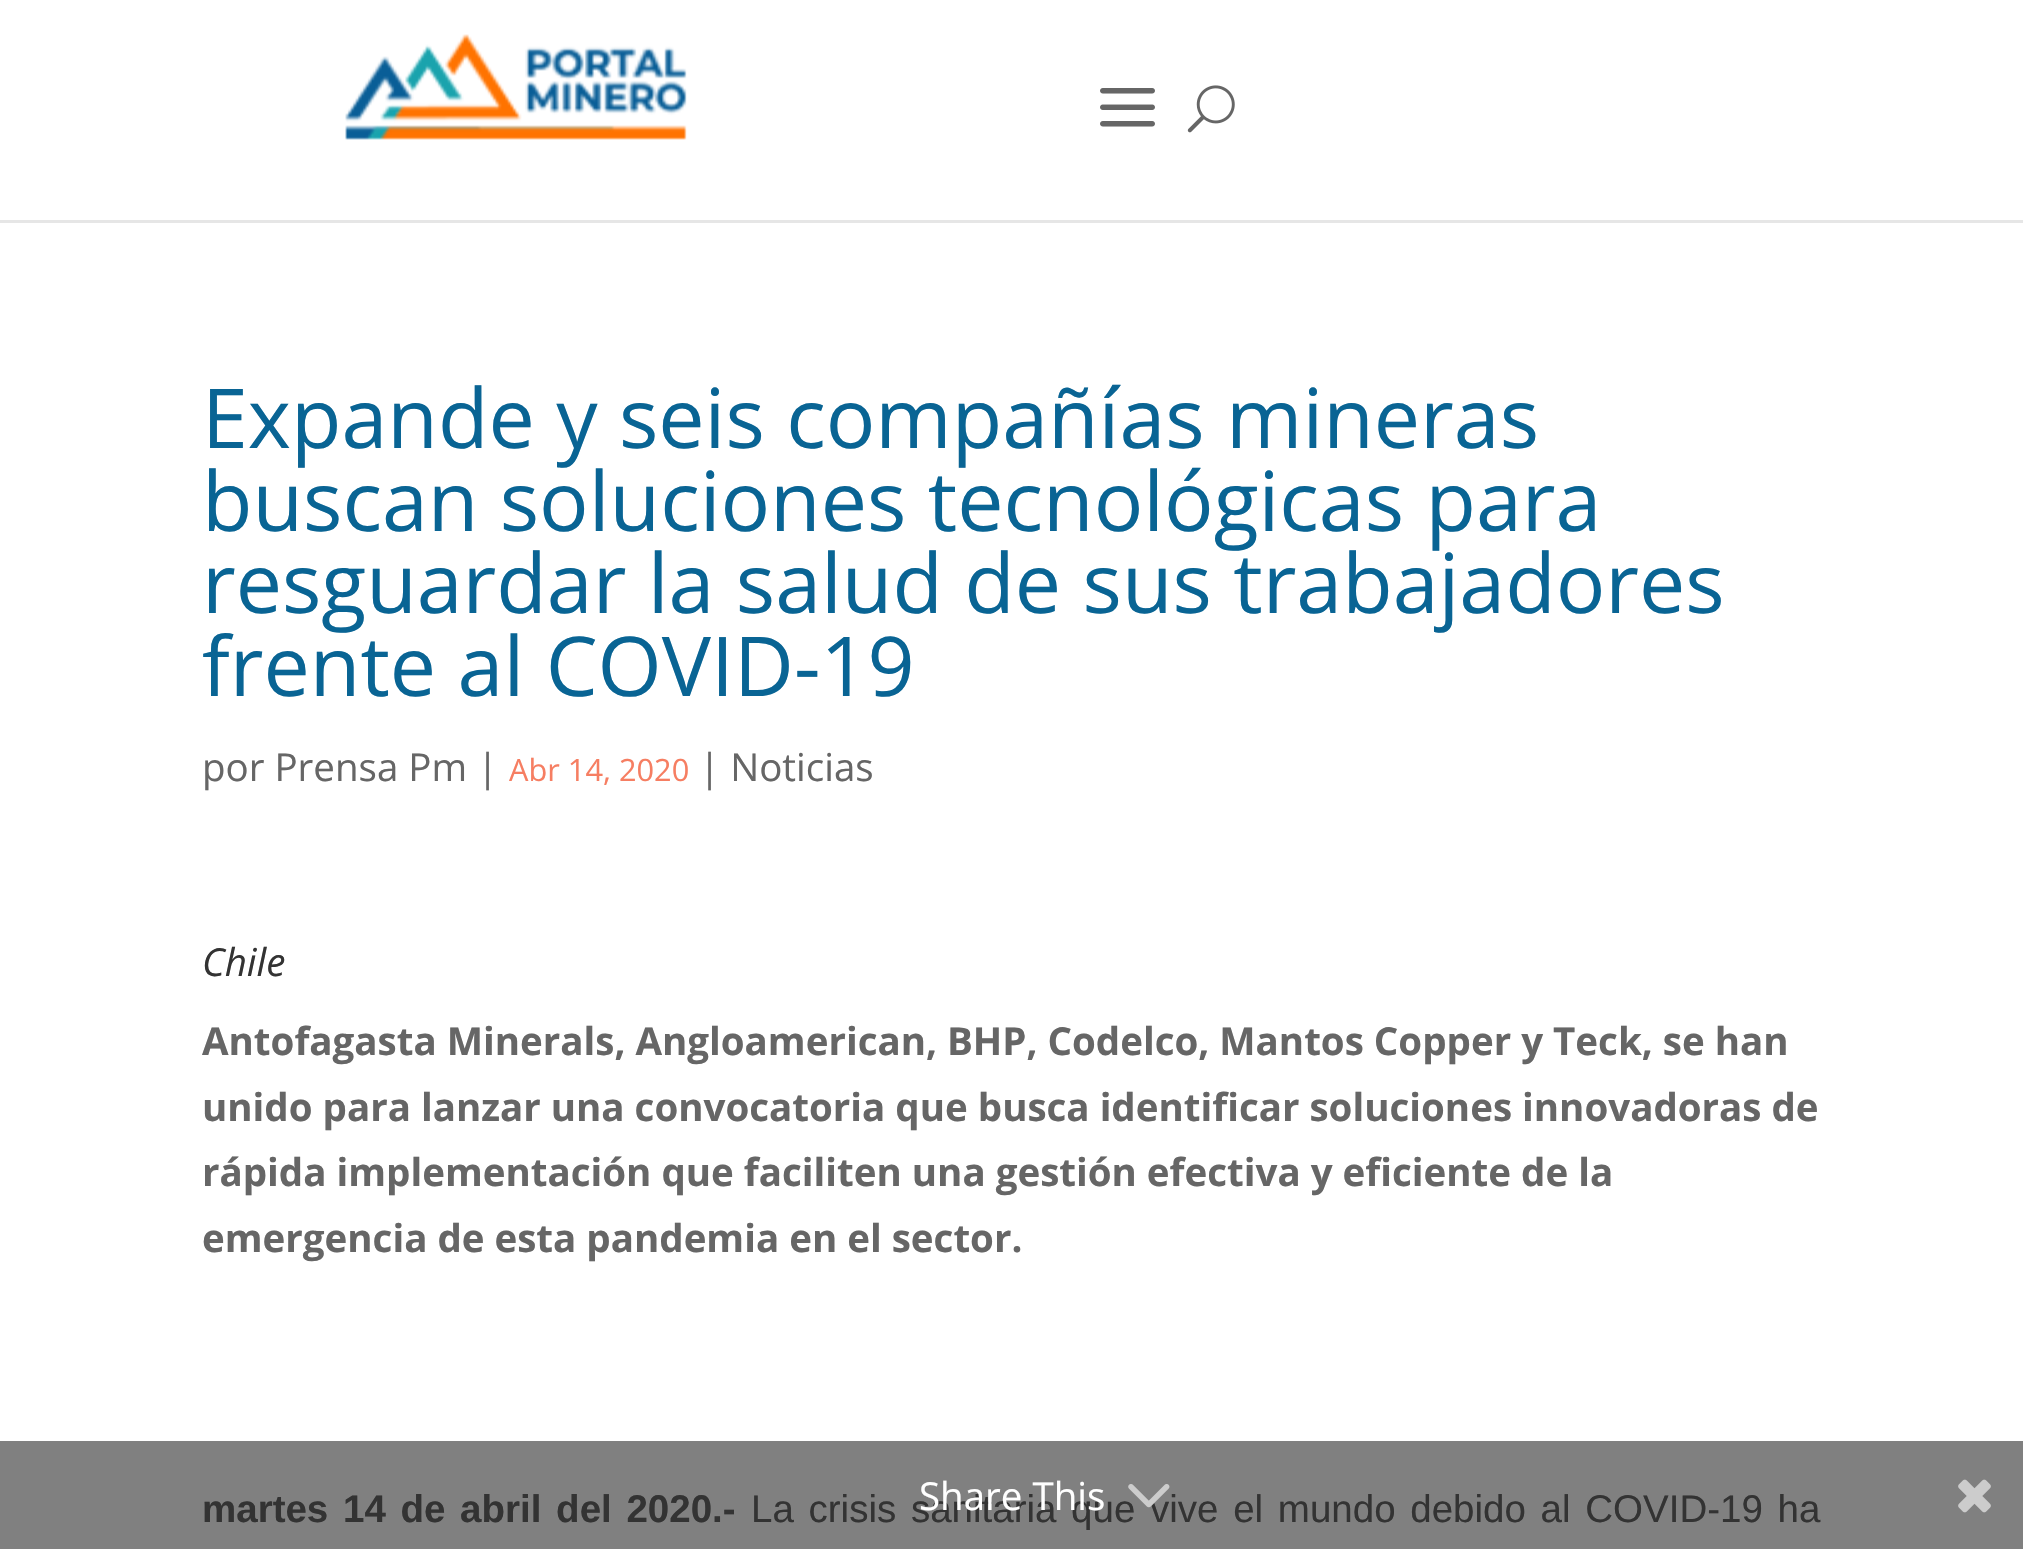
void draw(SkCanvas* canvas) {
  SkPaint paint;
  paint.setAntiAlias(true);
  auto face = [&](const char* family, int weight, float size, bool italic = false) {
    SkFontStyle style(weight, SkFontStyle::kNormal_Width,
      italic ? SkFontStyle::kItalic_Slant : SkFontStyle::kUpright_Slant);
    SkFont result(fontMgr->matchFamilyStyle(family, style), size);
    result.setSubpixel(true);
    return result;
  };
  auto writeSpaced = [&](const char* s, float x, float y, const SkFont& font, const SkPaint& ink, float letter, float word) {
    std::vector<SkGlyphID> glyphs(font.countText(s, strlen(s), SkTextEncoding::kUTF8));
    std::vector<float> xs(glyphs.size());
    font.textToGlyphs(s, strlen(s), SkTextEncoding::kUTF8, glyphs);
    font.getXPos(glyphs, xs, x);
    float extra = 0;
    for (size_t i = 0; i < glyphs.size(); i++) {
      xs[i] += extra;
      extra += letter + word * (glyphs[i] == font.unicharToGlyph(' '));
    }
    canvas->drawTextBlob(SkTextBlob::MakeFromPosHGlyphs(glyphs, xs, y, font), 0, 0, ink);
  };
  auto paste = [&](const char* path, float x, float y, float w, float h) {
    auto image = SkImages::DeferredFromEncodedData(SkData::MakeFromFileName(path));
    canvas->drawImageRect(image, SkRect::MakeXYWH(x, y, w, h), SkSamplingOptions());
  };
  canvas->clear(0xffffffff);
  paint.setColor(0xff808080);
  canvas->drawRect(SkRect::MakeXYWH(0, 1441, 2023, 108), paint);
  paint.setColor(0xffe6e6e6);
  canvas->drawRect(SkRect::MakeXYWH(0, 220, 2023, 3), paint);
  paste("img/1.png", 345, 34, 342, 106);
  paste("img/2.png", 1100, 88, 55, 39);
  paste("img/3.png", 1187, 85, 48, 48);
  paste("img/5.png", 1958, 1479, 33, 34);
  auto f0 = face("Open Sans", 400, 82.5f);
  paint.setColor(0xff096494);
  {
    const struct { const char* s; float x, y; } items[] = {
      {"Expande y seis compañías mineras", 202, 448},
      {"buscan soluciones tecnológicas para", 202, 531},
      {"resguardar la salud de sus trabajadores", 202, 613},
      {"frente al COVID-19", 202, 696},
    };
    for (auto [s, x, y] : items) {
      canvas->drawString(s, x, y, f0, paint);
    }
  }
  auto f1 = face("Open Sans", 400, 38.5f);
  paint.setColor(0xff666666);
  canvas->drawString("por Prensa Pm |", 202, 781, f1, paint);
  auto f2 = face("Open Sans", 400, 30.75f);
  paint.setColor(0xfff67e62);
  canvas->drawString("Abr 14, 2020", 509, 781, f2, paint);
  paint.setColor(0xff666666);
  canvas->drawString("| Noticias", 699, 781, f1, paint);
  auto f3 = face("Open Sans", 400, 38.5f, true);
  paint.setColor(0xff333333);
  canvas->drawString("Chile", 202, 976, f3, paint);
  auto f4 = face("Open Sans", 700, 38.5f);
  paint.setColor(0xff666666);
  {
    const struct { const char* s; float x, y; } items[] = {
      {"Antofagasta Minerals, Angloamerican, BHP, Codelco, Mantos Copper y Teck, se han", 202, 1055},
      {"unido para lanzar una convocatoria que busca identificar soluciones innovadoras de", 202, 1121},
      {"rápida implementación que faciliten una gestión efectiva y eficiente de la", 202, 1186},
      {"emergencia de esta pandemia en el sector.", 202, 1252},
    };
    for (auto [s, x, y] : items) {
      canvas->drawString(s, x, y, f4, paint);
    }
  }
  auto f5 = face("Liberation Sans", 700, 38.5f);
  paint.setColor(0xff333333);
  writeSpaced("martes 14 de abril del 2020.-", 202, 1522, f5, paint, 0, 4);
  auto f6 = face("Liberation Sans", 400, 38.5f);
  writeSpaced("La crisis sanitaria que vive el mundo debido al COVID-19 ha", 751, 1522, f6, paint, 0, 4);
  paint.setColor(0xffffffff);
  canvas->drawString("Share This", 919, 1510, f1, paint);
  paste("img/4.png", 1128, 1484, 42, 24);
}
